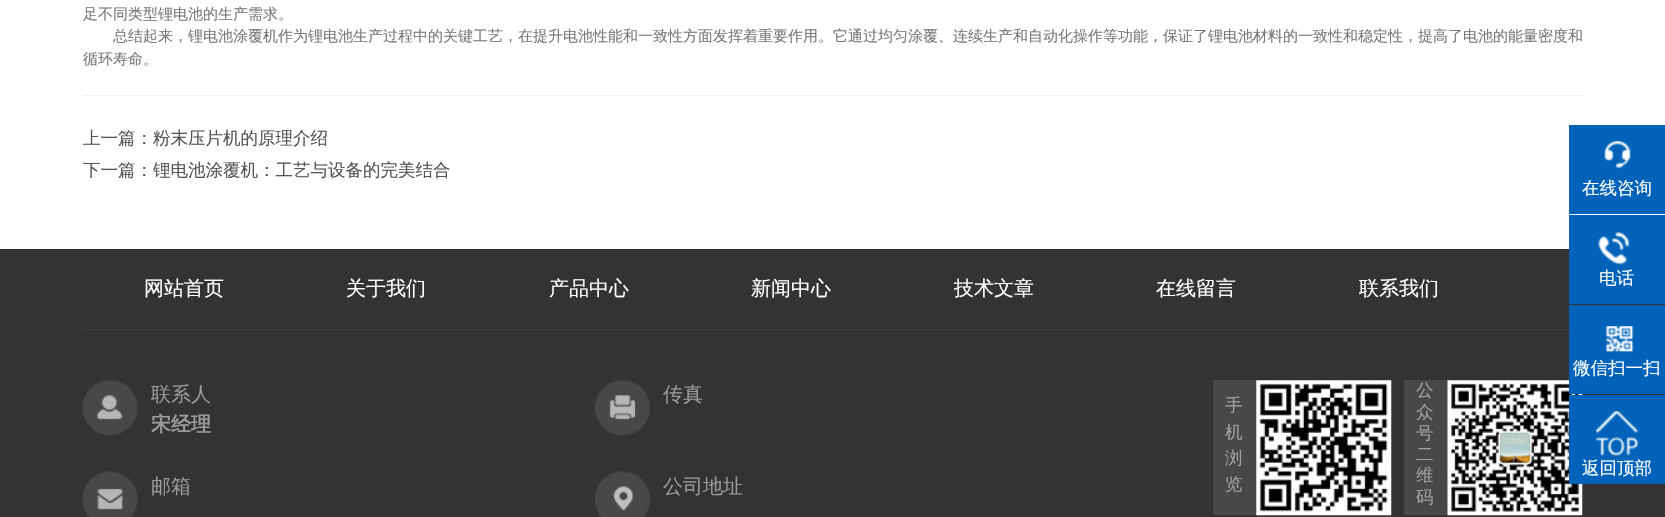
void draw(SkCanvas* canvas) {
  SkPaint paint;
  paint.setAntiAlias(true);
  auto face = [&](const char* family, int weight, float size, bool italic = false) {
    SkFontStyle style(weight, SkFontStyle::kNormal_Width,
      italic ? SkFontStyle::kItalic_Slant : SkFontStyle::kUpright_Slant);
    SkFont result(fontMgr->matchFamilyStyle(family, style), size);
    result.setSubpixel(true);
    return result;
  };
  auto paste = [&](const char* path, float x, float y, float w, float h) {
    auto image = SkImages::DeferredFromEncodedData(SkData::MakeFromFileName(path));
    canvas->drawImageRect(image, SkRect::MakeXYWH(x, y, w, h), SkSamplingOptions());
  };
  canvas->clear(0xffffffff);
  {
    const struct { float x, y, w, h; SkColor color; } items[] = {
      {83, 95, 1500, 1, 0xfff1f1f1},
      {0, 249, 1665, 268, 0xff333333},
      {83, 329, 1486, 1, 0xff434343},
    };
    for (auto [x, y, w, h, color] : items) {
      paint.setColor(color);
      canvas->drawRect(SkRect::MakeXYWH(x, y, w, h), paint);
    }
  }
  paste("img/1.png", 82, 380, 56, 56);
  paste("img/2.png", 595, 380, 55, 56);
  paste("img/3.png", 82, 471, 56, 46);
  paste("img/4.png", 595, 471, 55, 46);
  paint.setColor(0xff484848);
  canvas->drawRect(SkRect::MakeXYWH(1213, 380, 43, 135), paint);
  paste("img/5.png", 1256, 380, 136, 136);
  canvas->drawRect(SkRect::MakeXYWH(1404, 380, 44, 135), paint);
  paste("img/6.png", 1447, 380, 136, 136);
  paint.setColor(0xff0063b9);
  canvas->drawRect(SkRect::MakeXYWH(1569, 125, 96, 89), paint);
  paste("img/7.png", 1604, 141, 27, 28);
  canvas->drawRect(SkRect::MakeXYWH(1569, 215, 96, 89), paint);
  paste("img/8.png", 1598, 232, 32, 33);
  canvas->drawRect(SkRect::MakeXYWH(1569, 305, 96, 89), paint);
  paste("img/9.png", 1606, 326, 28, 27);
  canvas->drawRect(SkRect::MakeXYWH(1569, 395, 96, 89), paint);
  paste("img/10.png", 1596, 411, 43, 45);
  auto f0 = face("WenQuanYi Zen Hei", 500, 15);
  paint.setColor(0xff777777);
  {
    const struct { const char* s; float x, y; } items[] = {
      {"足不同类型锂电池的生产需求。", 83, 19},
      {"总结起来，锂电池涂覆机作为锂电池生产过程中的关键工艺，在提升电池性能和一致性方面发挥着重要作用。它通过均匀涂覆、连续生产和自动化操作等功能，保证了锂电池材料的一致性和稳定性，提高了电池的能量密度和", 113, 41},
      {"循环寿命。", 83, 64},
    };
    for (auto [s, x, y] : items) {
      canvas->drawString(s, x, y, f0, paint);
    }
  }
  auto f1 = face("WenQuanYi Zen Hei", 500, 17.5f);
  paint.setColor(0xff555555);
  canvas->drawString("上一篇：粉末压片机的原理介绍", 83, 144, f1, paint);
  canvas->drawString("下一篇：锂电池涂覆机：工艺与设备的完美结合", 83, 176, f1, paint);
  auto f2 = face("WenQuanYi Zen Hei", 500, 20);
  paint.setColor(0xffffffff);
  {
    const struct { const char* s; float x, y; } items[] = {
      {"网站首页", 144, 295},
      {"关于我们", 346, 295},
      {"产品中心", 549, 295},
      {"新闻中心", 751, 295},
      {"技术文章", 954, 295},
      {"在线留言", 1156, 295},
      {"联系我们", 1359, 295},
    };
    for (auto [s, x, y] : items) {
      canvas->drawString(s, x, y, f2, paint);
    }
  }
  paint.setColor(0xff9a9a9a);
  canvas->drawString("联系人", 151, 401, f2, paint);
  auto f3 = face("WenQuanYi Zen Hei", 700, 20);
  canvas->drawString("宋经理", 151, 431, f3, paint);
  {
    const struct { const char* s; float x, y; } items[] = {
      {"传真", 663, 401},
      {"邮箱", 151, 493},
      {"公司地址", 663, 493},
    };
    for (auto [s, x, y] : items) {
      canvas->drawString(s, x, y, f2, paint);
    }
  }
  paint.setColor(0xffa0a0a0);
  {
    const struct { const char* s; float x, y; } items[] = {
      {"手", 1225, 411},
      {"机", 1225, 438},
      {"浏", 1225, 464},
      {"览", 1225, 490},
      {"公", 1416, 396},
      {"众", 1416, 418},
      {"号", 1416, 439},
      {"二", 1416, 460},
      {"维", 1416, 481},
      {"码", 1416, 503},
    };
    for (auto [s, x, y] : items) {
      canvas->drawString(s, x, y, f1, paint);
    }
  }
  paint.setColor(0xffffffff);
  {
    const struct { const char* s; float x, y; } items[] = {
      {"在线咨询", 1582, 194},
      {"电话", 1599, 284},
      {"微信扫一扫", 1573, 374},
      {"返回顶部", 1582, 474},
    };
    for (auto [s, x, y] : items) {
      canvas->drawString(s, x, y, f1, paint);
    }
  }
}
